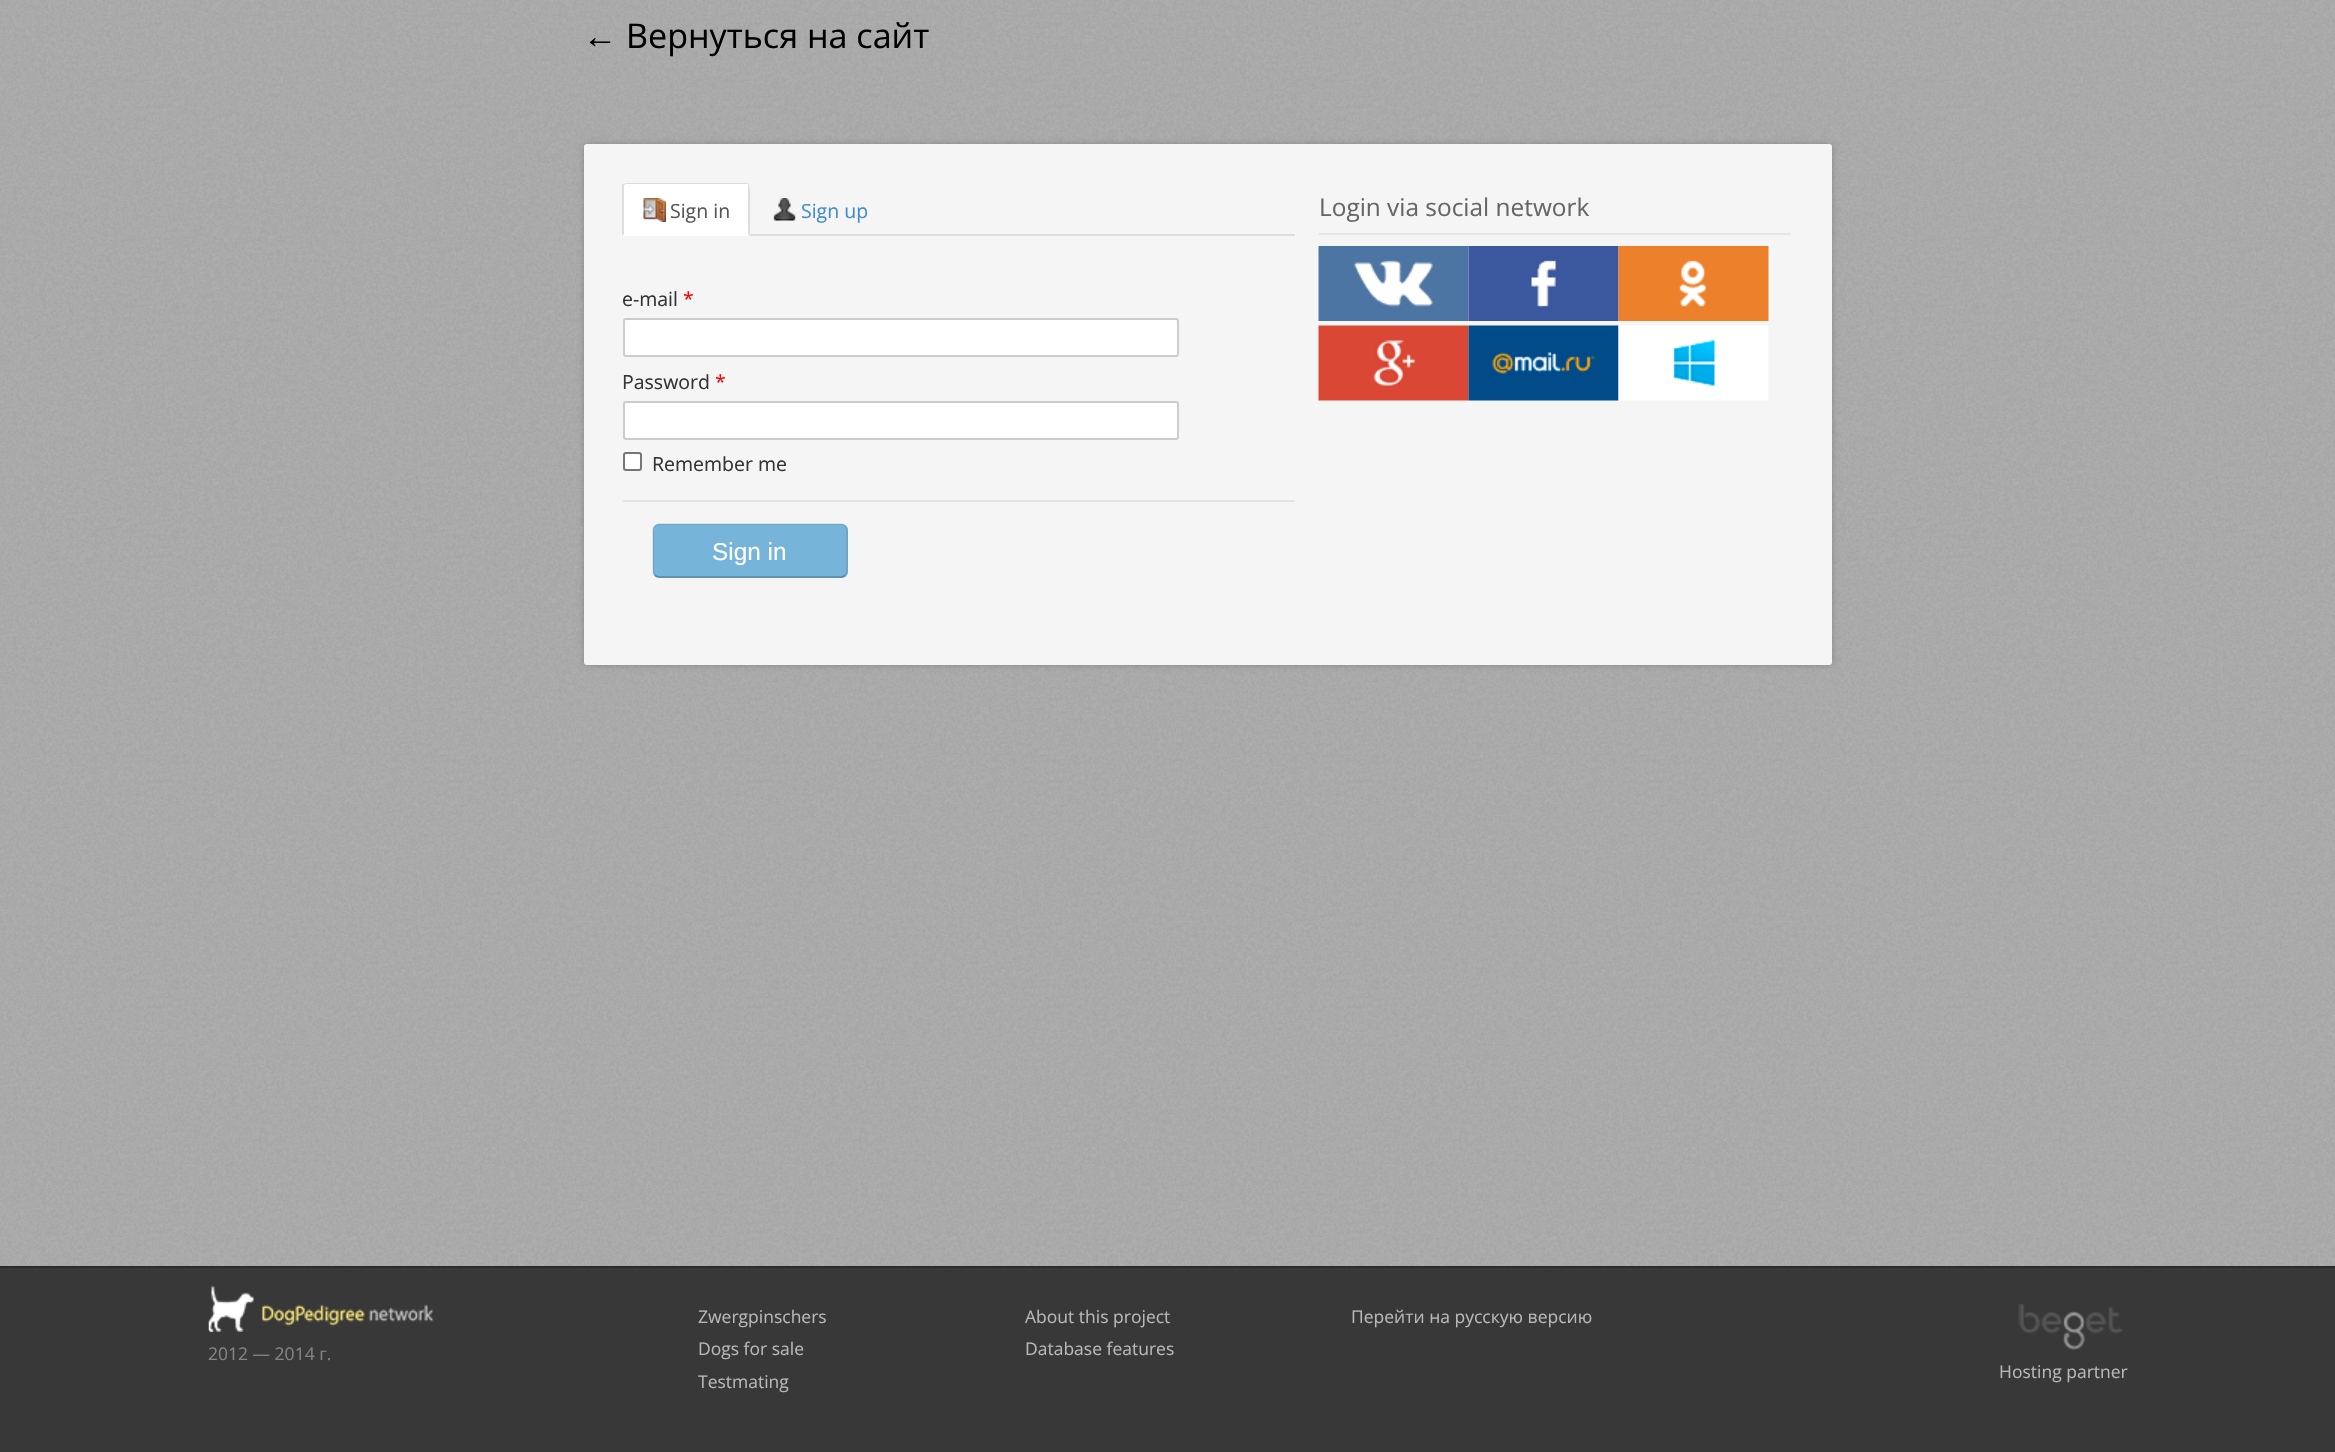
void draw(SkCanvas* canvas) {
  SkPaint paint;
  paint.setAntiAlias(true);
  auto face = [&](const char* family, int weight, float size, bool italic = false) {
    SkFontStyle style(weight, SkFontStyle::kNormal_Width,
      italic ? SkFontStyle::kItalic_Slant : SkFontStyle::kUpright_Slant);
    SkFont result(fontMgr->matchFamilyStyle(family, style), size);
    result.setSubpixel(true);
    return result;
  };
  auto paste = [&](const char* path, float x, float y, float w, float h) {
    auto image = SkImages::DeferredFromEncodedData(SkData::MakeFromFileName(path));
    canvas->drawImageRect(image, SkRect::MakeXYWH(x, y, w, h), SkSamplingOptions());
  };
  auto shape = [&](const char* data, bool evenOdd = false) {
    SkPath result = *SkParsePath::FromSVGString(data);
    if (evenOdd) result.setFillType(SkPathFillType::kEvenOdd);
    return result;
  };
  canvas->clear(0xffacacac);
  paste("img/1.png", 0, 0, 2335, 1266);
  paint.setColor(0x33000000);
  paint.setMaskFilter(SkMaskFilter::MakeBlur(kNormal_SkBlurStyle, 3));
  canvas->drawRoundRect(SkRect::MakeXYWH(584, 144, 1248, 521), 3, 3, paint);
  paint.setMaskFilter(nullptr);
  paint.setColor(0xfff5f5f5);
  canvas->drawRoundRect(SkRect::MakeXYWH(584, 144, 1248, 521), 3, 3, paint);
  paint.setColor(0xffdddddd);
  canvas->drawRect(SkRect::MakeXYWH(750, 234, 545, 2), paint);
  paint.setColor(0xffffffff);
  canvas->drawPath(shape("M626 183H747C748.5 183 750 184.5 750 186V236H623V186C623 184.5 624.5 183 626 183Z"), paint);
  paint.setColor(0xffdddddd);
  canvas->drawPath(shape("M626 183L623 184L624 185L626 184H747C748 184 748 184 748 185L749 184L747 183Z"), paint);
  canvas->drawPath(shape("M750 236C750 230 751 186 749 184L748 185V234Z"), paint);
  canvas->drawPath(shape("M622 236V184H623L624 185V234Z"), paint);
  paste("img/2.png", 643, 198, 23, 24);
  paste("img/3.png", 773, 198, 23, 23);
  paint.setColor(0xffffffff);
  canvas->drawRoundRect(SkRect::MakeXYWH(624, 319, 554, 37), 2, 2, paint);
  paint.setStroke(true);
  paint.setStrokeWidth(2);
  paint.setColor(0xffcccccc);
  canvas->drawRoundRect(SkRect::MakeXYWH(624, 319, 554, 37), 2, 2, paint);
  paint.setStroke(false);
  paint.setColor(0xffffffff);
  canvas->drawRoundRect(SkRect::MakeXYWH(624, 402, 554, 37), 2, 2, paint);
  paint.setStroke(true);
  paint.setColor(0xffcccccc);
  canvas->drawRoundRect(SkRect::MakeXYWH(624, 402, 554, 37), 2, 2, paint);
  paint.setStroke(false);
  paint.setColor(0xffffffff);
  canvas->drawRoundRect(SkRect::MakeXYWH(624, 453, 17, 17), 2, 2, paint);
  paint.setStroke(true);
  paint.setColor(0xff767676);
  canvas->drawRoundRect(SkRect::MakeXYWH(624, 453, 17, 17), 2, 2, paint);
  paint.setStroke(false);
  paint.setColor(0xffe5e5e5);
  canvas->drawRect(SkRect::MakeXYWH(623, 500, 672, 2), paint);
  paint.setColor(0xff76b4da);
  canvas->drawRoundRect(SkRect::MakeXYWH(653, 524, 195, 54), 6, 6, paint);
  paint.setStroke(true);
  paint.setStrokeWidth(1.5f);
  paint.setColor(0x40000000);
  canvas->drawPath(shape("M845 575C844 576 843 577 841.5 577H658.5C657 577 656 576 655 575"), paint);
  paint.setColor(0x1a000000);
  canvas->drawPath(shape("M655 575C654 574 653 573 653 571.5V529.5C653 528 654 527 655 526C656 525 657 524 658.5 524H841.5C843 524 844 525 845 526C846 527 847 528 847 529.5V571.5C847 573 846 574 845 575"), paint);
  paint.setStroke(false);
  paint.setColor(0xffe5e5e5);
  canvas->drawRect(SkRect::MakeXYWH(1319, 233, 472, 2), paint);
  paste("img/4.png", 1318, 246, 151, 75);
  paste("img/5.png", 1468, 246, 151, 75);
  paste("img/6.png", 1618, 246, 151, 75);
  paste("img/7.png", 1318, 325, 151, 76);
  paste("img/8.png", 1468, 325, 151, 76);
  paste("img/9.png", 1618, 325, 151, 76);
  paint.setColor(0xff383838);
  canvas->drawRect(SkRect::MakeXYWH(0, 1268, 2335, 184), paint);
  paint.setColor(0xff2b2b2b);
  canvas->drawRect(SkRect::MakeXYWH(0, 1266, 2335, 2), paint);
  paste("img/10.png", 208, 1285, 226, 47);
  paste("img/11.png", 2018, 1304, 105, 46);
  auto f0 = face("Liberation Sans", 400, 34.1f);
  paint.setColor(0xff000000);
  canvas->drawString("←", 583, 48, f0, paint);
  auto f1 = face("Open Sans", 400, 34.1f);
  canvas->drawString("Вернуться на сайт", 626, 48, f1, paint);
  auto f2 = face("Open Sans", 400, 19.5f);
  paint.setColor(0xff555555);
  canvas->drawString("Sign in", 670, 218, f2, paint);
  paint.setColor(0xff428bca);
  canvas->drawString("Sign up", 801, 218, f2, paint);
  paint.setColor(0xff333333);
  canvas->drawString("e-mail", 622, 306, f2, paint);
  paint.setColor(0xffff0000);
  canvas->drawString("*", 683, 306, f2, paint);
  paint.setColor(0xff333333);
  canvas->drawString("Password", 622, 389, f2, paint);
  paint.setColor(0xffff0000);
  canvas->drawString("*", 715, 389, f2, paint);
  paint.setColor(0xff333333);
  canvas->drawString("Remember me", 652, 471, f2, paint);
  auto f3 = face("Liberation Sans", 400, 24.4f);
  paint.setColor(0xffffffff);
  canvas->drawString("Sign in", 712, 560, f3, paint);
  auto f4 = face("Open Sans", 400, 24.4f);
  paint.setColor(0xff666666);
  canvas->drawString("Login via social network", 1319, 216, f4, paint);
  auto f5 = face("Open Sans", 400, 17.5f);
  paint.setColor(0xffb8b8b8);
  {
    const struct { const char* s; float x, y; } items[] = {
      {"Zwergpinschers", 698, 1323},
      {"Dogs for sale", 698, 1355},
      {"Testmating", 698, 1388},
      {"About this project", 1025, 1323},
      {"Database features", 1025, 1355},
      {"Перейти на русскую версию", 1351, 1323},
    };
    for (auto [s, x, y] : items) {
      canvas->drawString(s, x, y, f5, paint);
    }
  }
  paint.setColor(0xff848484);
  canvas->drawString("2012 — 2014 г.", 208, 1360, f5, paint);
  paint.setColor(0xffb8b8b8);
  canvas->drawString("Hosting partner", 1999, 1378, f5, paint);
}
